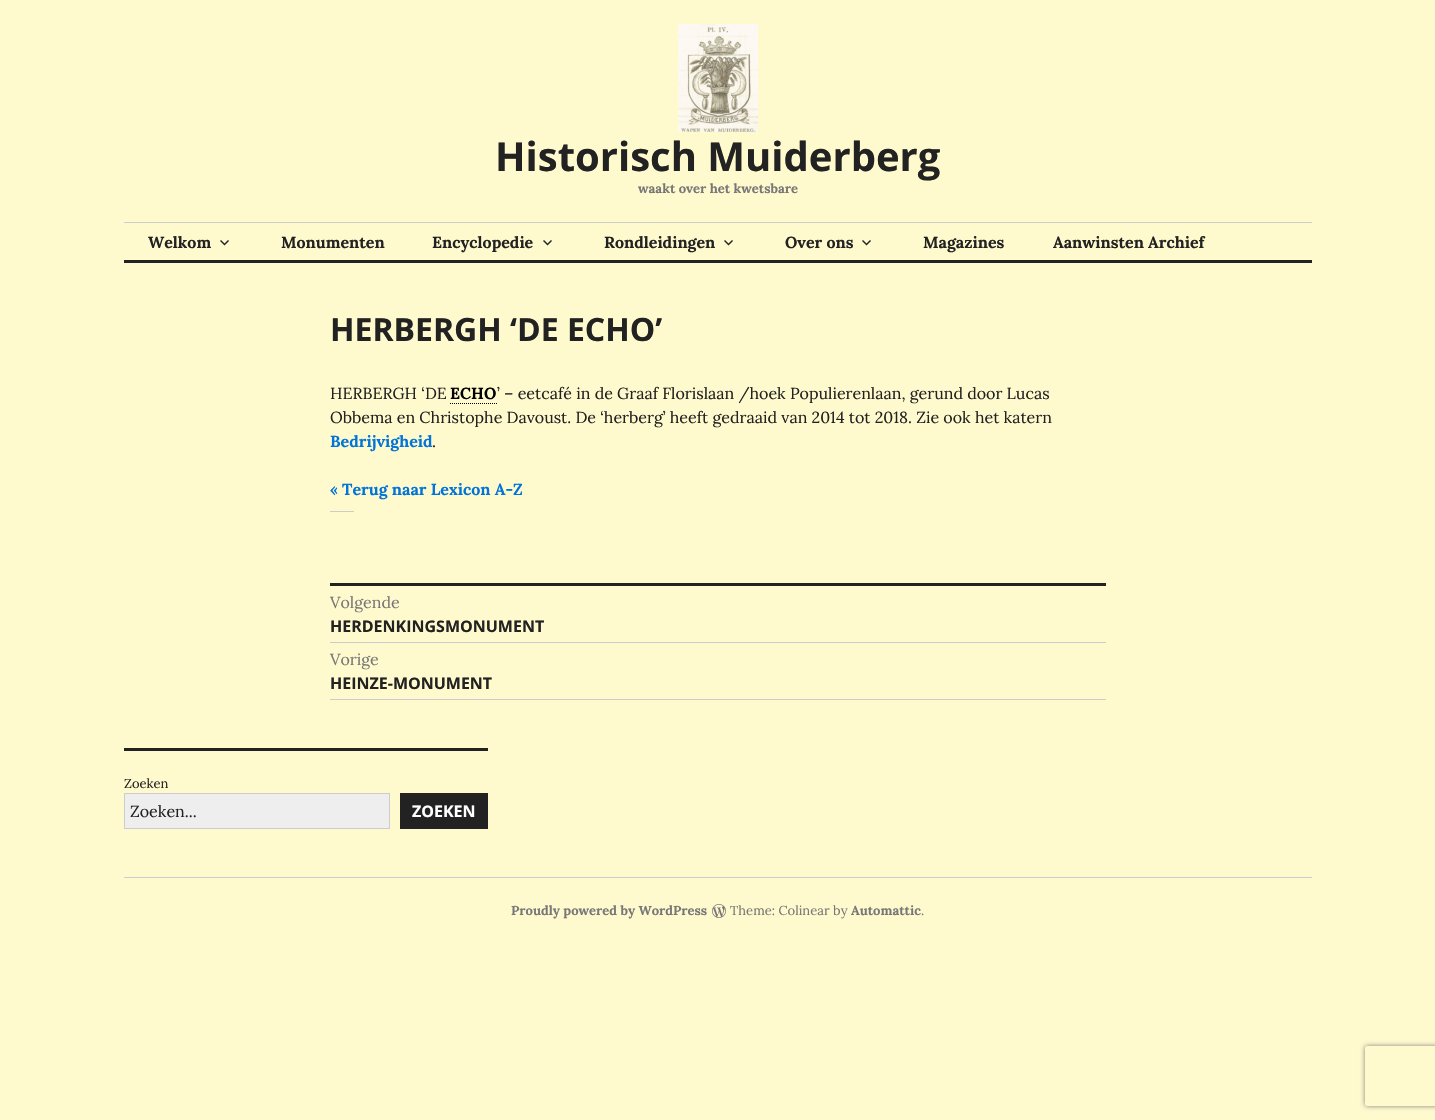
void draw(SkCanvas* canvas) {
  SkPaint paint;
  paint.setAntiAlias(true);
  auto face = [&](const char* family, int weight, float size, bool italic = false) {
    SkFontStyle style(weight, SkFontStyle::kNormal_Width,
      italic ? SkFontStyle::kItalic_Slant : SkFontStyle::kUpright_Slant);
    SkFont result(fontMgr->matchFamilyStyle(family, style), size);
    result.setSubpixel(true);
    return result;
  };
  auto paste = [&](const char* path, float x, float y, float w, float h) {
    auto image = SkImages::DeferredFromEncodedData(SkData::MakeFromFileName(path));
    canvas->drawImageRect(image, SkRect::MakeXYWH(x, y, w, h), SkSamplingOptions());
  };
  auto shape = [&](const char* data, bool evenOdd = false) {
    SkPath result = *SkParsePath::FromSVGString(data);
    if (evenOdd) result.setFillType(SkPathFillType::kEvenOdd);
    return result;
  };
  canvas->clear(0xfffffacd);
  paste("img/1.png", 678, 24, 80, 108);
  paint.setColor(0xffcccccc);
  canvas->drawRect(SkRect::MakeXYWH(124, 222, 1188, 1), paint);
  paint.setColor(0xff222222);
  canvas->drawRect(SkRect::MakeXYWH(124, 260, 1188, 3), paint);
  paste("img/2.png", 220, 240, 9, 6);
  paste("img/2.png", 543, 240, 9, 6);
  paste("img/2.png", 724, 240, 9, 6);
  paste("img/2.png", 862, 240, 9, 6);
  paint.setStroke(true);
  paint.setStrokeWidth(1);
  paint.setColor(0xff000000);
  paint.setPathEffect(SkDashPathEffect::Make({{1, 1}}, 0));
  canvas->drawPath(shape("M450 403.5H497"), paint);
  paint.setPathEffect(nullptr);
  paint.setStroke(false);
  {
    const struct { float x, y, w, h; SkColor color; } items[] = {
      {330, 511, 24, 1, 0xffcccccc},
      {330, 583, 776, 3, 0xff222222},
      {330, 642, 776, 1, 0xffcccccc},
      {330, 699, 776, 1, 0xffcccccc},
      {124, 748, 364, 3, 0xff222222},
    };
    for (auto [x, y, w, h, color] : items) {
      paint.setColor(color);
      canvas->drawRect(SkRect::MakeXYWH(x, y, w, h), paint);
    }
  }
  paint.setColor(0xffeeeeee);
  canvas->drawRect(SkRect::MakeXYWH(124.5f, 793.5f, 265, 35), paint);
  paint.setStroke(true);
  paint.setColor(0xffcccccc);
  canvas->drawRect(SkRect::MakeXYWH(124.5f, 793.5f, 265, 35), paint);
  paint.setStroke(false);
  paint.setColor(0xff222222);
  canvas->drawRect(SkRect::MakeXYWH(400, 793, 88, 36), paint);
  paint.setColor(0xffcccccc);
  canvas->drawRect(SkRect::MakeXYWH(124, 877, 1188, 1), paint);
  paste("img/3.png", 712, 904, 14, 14);
  canvas->save();
  canvas->clipPath(shape("M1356 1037H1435V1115H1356ZM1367 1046H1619C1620 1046 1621 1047 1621 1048V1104C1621 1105 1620 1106 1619 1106H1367C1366 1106 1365 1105 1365 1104V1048C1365 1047 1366 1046 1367 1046Z", true), true);
  paint.setColor(0xff808080);
  paint.setMaskFilter(SkMaskFilter::MakeBlur(kNormal_SkBlurStyle, 2.5f));
  canvas->drawRoundRect(SkRect::MakeXYWH(1365, 1046, 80, 60), 2, 2, paint);
  paint.setMaskFilter(nullptr);
  canvas->restore();
  auto f0 = face("Open Sans", 700, 40);
  paint.setColor(0xff222222);
  canvas->drawString("Historisch Muiderberg", 495, 171, f0, paint);
  auto f1 = face("Lora", 700, 13);
  paint.setColor(0xff777777);
  canvas->drawString("waakt over het kwetsbare", 638, 193, f1, paint);
  auto f2 = face("Lora", 700, 16);
  paint.setColor(0xff222222);
  {
    const struct { const char* s; float x, y; } items[] = {
      {"Welkom", 148, 248},
      {"Monumenten", 281, 248},
      {"Encyclopedie", 432, 248},
      {"Rondleidingen", 604, 248},
      {"Over ons", 785, 248},
      {"Magazines", 923, 248},
      {"Aanwinsten Archief", 1053, 248},
    };
    for (auto [s, x, y] : items) {
      canvas->drawString(s, x, y, f2, paint);
    }
  }
  auto f3 = face("Open Sans", 700, 32);
  canvas->drawString("HERBERGH ‘DE ECHO’", 330, 341, f3, paint);
  auto f4 = face("Lora", 400, 16);
  canvas->drawString("HERBERGH ‘DE", 330, 399, f4, paint);
  paint.setColor(0xff000000);
  canvas->drawString("ECHO", 450, 399, f2, paint);
  paint.setColor(0xff222222);
  canvas->drawString("’ – eetcafé in de Graaf Florislaan /hoek Populierenlaan, gerund door Lucas", 497, 399, f4, paint);
  canvas->drawString("Obbema en Christophe Davoust. De ‘herberg’ heeft gedraaid van 2014 tot 2018. Zie ook het katern", 330, 423, f4, paint);
  paint.setColor(0xff0074d9);
  canvas->drawString("Bedrijvigheid", 330, 447, f2, paint);
  paint.setColor(0xff222222);
  canvas->drawString(".", 432, 447, f4, paint);
  paint.setColor(0xff0074d9);
  canvas->drawString("« Terug naar Lexicon A-Z", 330, 495, f2, paint);
  paint.setColor(0xff777777);
  canvas->drawString("Volgende", 330, 608, f4, paint);
  auto f5 = face("Open Sans", 700, 16);
  paint.setColor(0xff222222);
  canvas->drawString("HERDENKINGSMONUMENT", 330, 632, f5, paint);
  paint.setColor(0xff777777);
  canvas->drawString("Vorige", 330, 665, f4, paint);
  paint.setColor(0xff222222);
  canvas->drawString("HEINZE-MONUMENT", 330, 689, f5, paint);
  auto f6 = face("Lora", 400, 13);
  canvas->drawString("Zoeken", 124, 788, f6, paint);
  canvas->drawString("Zoeken...", 130, 817, f4, paint);
  paint.setColor(0xffffffff);
  canvas->drawString("ZOEKEN", 412, 817, f5, paint);
  paint.setColor(0xff777777);
  canvas->drawString("Proudly powered by WordPress", 511, 915, f1, paint);
  canvas->drawString("Theme: Colinear by", 730, 915, f6, paint);
  canvas->drawString("Automattic", 851, 915, f1, paint);
  canvas->drawString(".", 921, 915, f6, paint);
}
